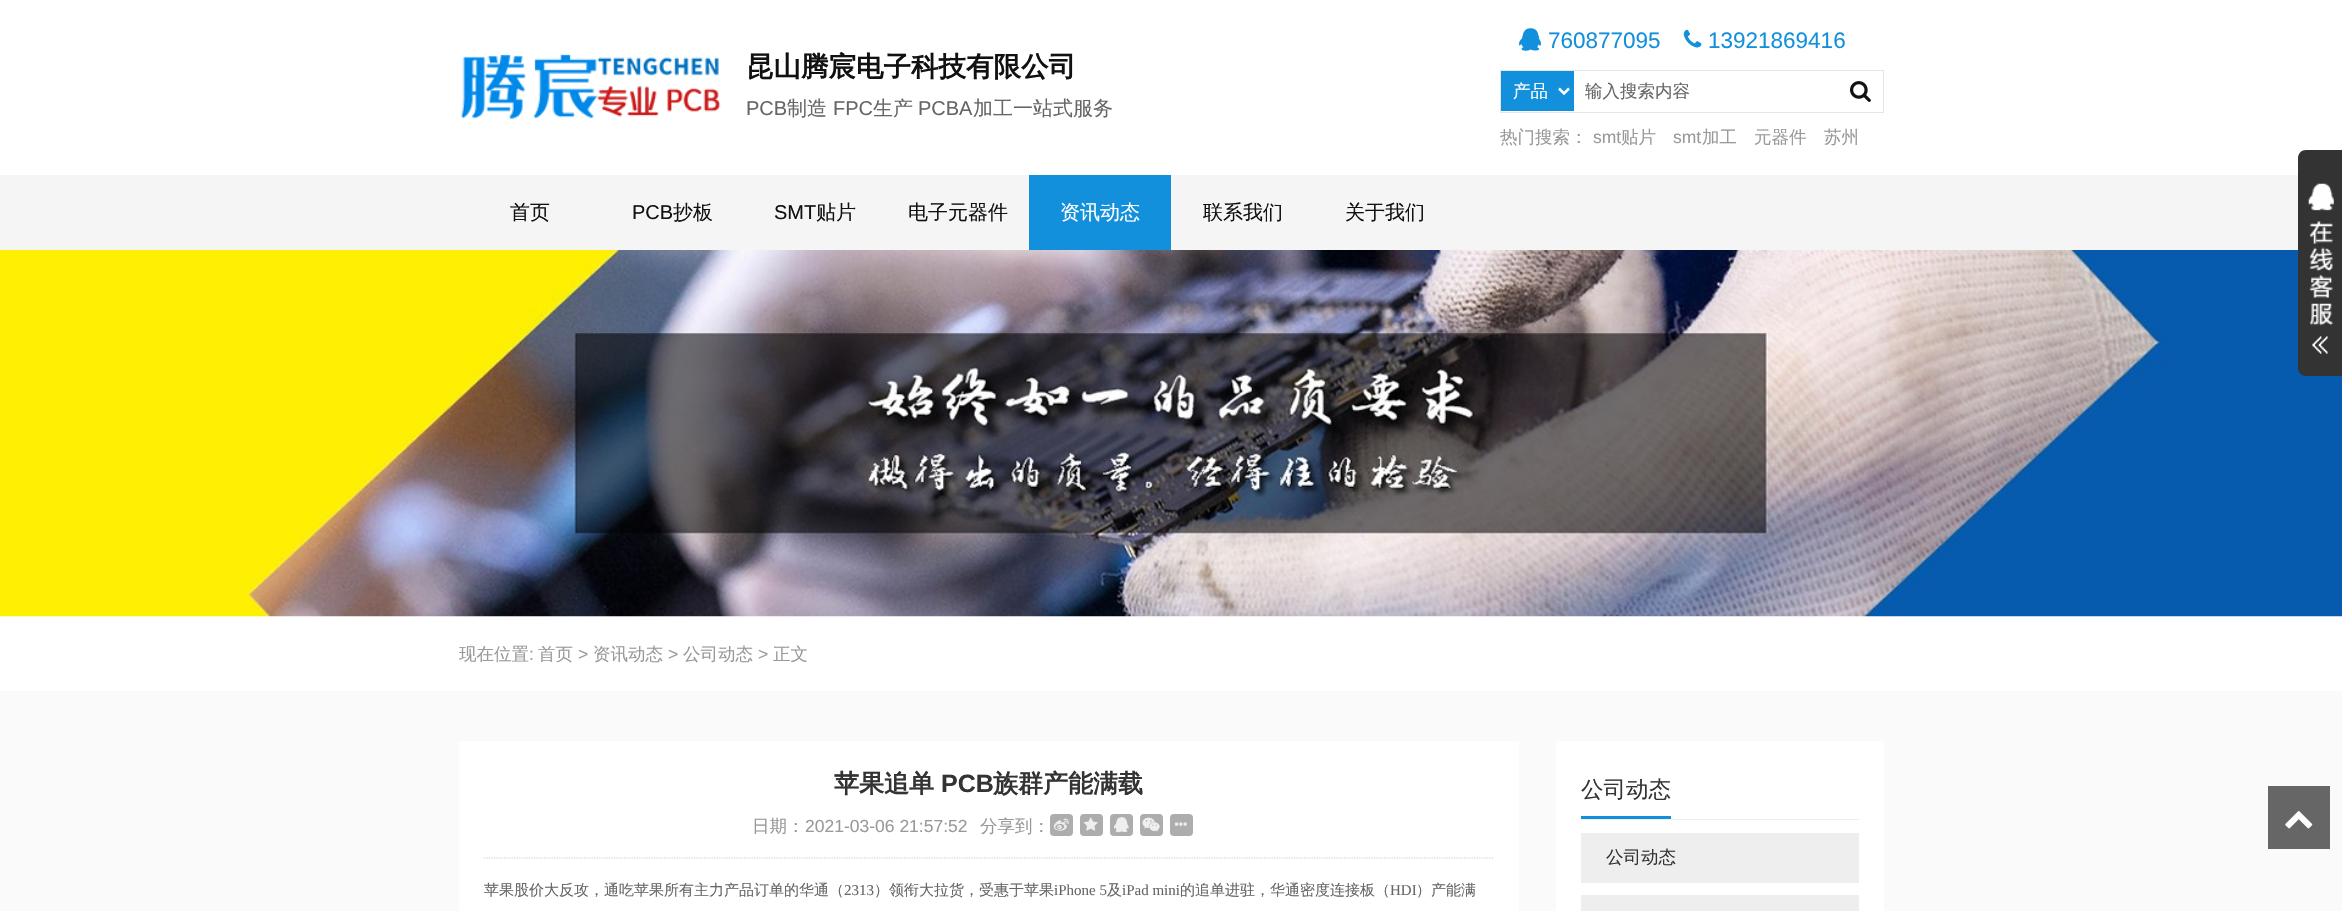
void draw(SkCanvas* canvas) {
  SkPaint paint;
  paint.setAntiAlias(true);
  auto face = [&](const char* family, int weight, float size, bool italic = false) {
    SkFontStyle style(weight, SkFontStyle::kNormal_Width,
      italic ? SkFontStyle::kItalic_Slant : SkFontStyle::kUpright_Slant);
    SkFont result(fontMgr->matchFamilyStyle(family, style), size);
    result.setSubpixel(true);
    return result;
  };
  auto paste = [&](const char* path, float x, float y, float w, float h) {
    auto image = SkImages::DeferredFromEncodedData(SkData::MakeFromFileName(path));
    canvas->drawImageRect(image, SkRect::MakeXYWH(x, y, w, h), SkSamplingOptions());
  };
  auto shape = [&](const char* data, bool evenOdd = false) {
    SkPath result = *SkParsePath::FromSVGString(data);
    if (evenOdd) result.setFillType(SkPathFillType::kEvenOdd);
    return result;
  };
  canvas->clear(0xffffffff);
  paste("img/1.png", 460, 53, 261, 66);
  paste("img/2.png", 1519, 28, 22, 23);
  paste("img/3.png", 1683, 29, 19, 19);
  paint.setStroke(true);
  paint.setStrokeWidth(1);
  paint.setColor(0xffe5e5e5);
  canvas->drawRect(SkRect::MakeXYWH(1500.5f, 70.5f, 383, 42), paint);
  paint.setStroke(false);
  paint.setColor(0xff1390db);
  canvas->drawRect(SkRect::MakeXYWH(1501, 71, 73, 40), paint);
  paint.setStroke(true);
  paint.setStrokeWidth(2.5f);
  paint.setColor(0xffffffff);
  canvas->drawPath(shape("M1559 88.5L1564 93.5L1569 88.5"), paint);
  paste("img/4.png", 1850, 81, 21, 21);
  paint.setStroke(false);
  paint.setColor(0xfff5f5f5);
  canvas->drawRect(SkRect::MakeXYWH(0, 175, 2298, 75), paint);
  paint.setColor(0xff1390db);
  canvas->drawRect(SkRect::MakeXYWH(1029, 175, 142, 75), paint);
  paste("img/6.png", 0, 250, 2342, 367);
  paint.setColor(0xff333333);
  canvas->drawPath(shape("M2306 150H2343V376H2306C2301.5 376 2298 372.5 2298 368V158C2298 153.5 2301.5 150 2306 150Z"), paint);
  paste("img/5.png", 2308, 183, 26, 171);
  paint.setColor(0xfffafafa);
  canvas->drawRect(SkRect::MakeXYWH(0, 691, 2342, 220), paint);
  paint.setColor(0xffffffff);
  canvas->drawRect(SkRect::MakeXYWH(459, 741, 1060, 170), paint);
  paint.setStroke(true);
  paint.setStrokeWidth(1.2f);
  paint.setColor(0xffcccccc);
  paint.setPathEffect(SkDashPathEffect::Make({{1.25f, 1.25f}}, 0));
  canvas->drawPath(shape("M484 858H1494"), paint);
  paint.setPathEffect(nullptr);
  paint.setStroke(false);
  paint.setColor(0xffadadad);
  canvas->drawRoundRect(SkRect::MakeXYWH(1050, 814, 23, 22), 4, 4, paint);
  paste("img/7.png", 1053, 818, 16, 13);
  canvas->drawRoundRect(SkRect::MakeXYWH(1080, 814, 23, 22), 4, 4, paint);
  paste("img/8.png", 1083, 817, 15, 14);
  canvas->drawRoundRect(SkRect::MakeXYWH(1110, 814, 23, 22), 4, 4, paint);
  paste("img/9.png", 1114, 817, 15, 16);
  canvas->drawRoundRect(SkRect::MakeXYWH(1140, 814, 23, 22), 4, 4, paint);
  paste("img/10.png", 1142, 817, 18, 15);
  canvas->drawRoundRect(SkRect::MakeXYWH(1170, 814, 23, 22), 4, 4, paint);
  paste("img/11.png", 1175, 822, 12, 4);
  {
    const struct { float x, y, w, h; SkColor color; } items[] = {
      {1556, 741, 328, 170, 0xffffffff},
      {1581, 819, 278, 1, 0xffeeeeee},
      {1581, 816, 90, 3, 0xff1390db},
      {1581, 833, 278, 50, 0xffeeeeee},
      {1581, 895, 278, 16, 0xffeeeeee},
      {2268, 786, 62, 63, 0xff666666},
    };
    for (auto [x, y, w, h, color] : items) {
      paint.setColor(color);
      canvas->drawRect(SkRect::MakeXYWH(x, y, w, h), paint);
    }
  }
  paste("img/12.png", 2285, 811, 28, 18);
  auto f0 = face("WenQuanYi Zen Hei", 700, 27.5f);
  paint.setColor(0xff111111);
  canvas->drawString("昆山腾宸电子科技有限公司", 746, 76, f0, paint);
  auto f1 = face("Liberation Sans", 400, 20);
  paint.setColor(0xff666666);
  canvas->drawString("PCB", 746, 115, f1, paint);
  auto f2 = face("WenQuanYi Zen Hei", 500, 20);
  canvas->drawString("制造", 787, 115, f2, paint);
  canvas->drawString("FPC", 833, 115, f1, paint);
  canvas->drawString("生产", 873, 115, f2, paint);
  canvas->drawString("PCBA", 918, 115, f1, paint);
  canvas->drawString("加工一站式服务", 973, 115, f2, paint);
  auto f3 = face("Liberation Sans", 400, 22.5f);
  paint.setColor(0xff1390db);
  canvas->drawString("760877095", 1548, 48, f3, paint);
  canvas->drawString("13921869416", 1708, 48, f3, paint);
  auto f4 = face("WenQuanYi Zen Hei", 500, 17.5f);
  paint.setColor(0xffffffff);
  canvas->drawString("产品", 1513, 97, f4, paint);
  paint.setColor(0xff666666);
  canvas->drawString("输入搜索内容", 1585, 97, f4, paint);
  paint.setColor(0xff999999);
  canvas->drawString("热门搜索：", 1500, 143, f4, paint);
  auto f5 = face("Liberation Sans", 400, 17.5f);
  canvas->drawString("smt", 1593, 143, f5, paint);
  canvas->drawString("贴片", 1621, 143, f4, paint);
  canvas->drawString("smt", 1673, 143, f5, paint);
  {
    const struct { const char* s; float x, y; } items[] = {
      {"加工", 1702, 143},
      {"元器件", 1754, 143},
      {"苏州", 1824, 143},
    };
    for (auto [s, x, y] : items) {
      canvas->drawString(s, x, y, f4, paint);
    }
  }
  paint.setColor(0xff111111);
  canvas->drawString("首页", 510, 219, f2, paint);
  canvas->drawString("PCB", 632, 219, f1, paint);
  canvas->drawString("抄板", 673, 219, f2, paint);
  canvas->drawString("SMT", 774, 219, f1, paint);
  canvas->drawString("贴片", 816, 219, f2, paint);
  canvas->drawString("电子元器件", 908, 219, f2, paint);
  paint.setColor(0xffffffff);
  canvas->drawString("资讯动态", 1060, 219, f2, paint);
  paint.setColor(0xff111111);
  canvas->drawString("联系我们", 1203, 219, f2, paint);
  canvas->drawString("关于我们", 1345, 219, f2, paint);
  paint.setColor(0xff999999);
  canvas->drawString("现在位置", 459, 660, f4, paint);
  canvas->drawString(":", 529, 660, f5, paint);
  canvas->drawString("首页", 538, 660, f4, paint);
  canvas->drawString(">", 578, 660, f5, paint);
  canvas->drawString("资讯动态", 593, 660, f4, paint);
  canvas->drawString(">", 668, 660, f5, paint);
  canvas->drawString("公司动态", 683, 660, f4, paint);
  canvas->drawString(">", 758, 660, f5, paint);
  canvas->drawString("正文", 773, 660, f4, paint);
  auto f6 = face("WenQuanYi Zen Hei", 700, 25);
  paint.setColor(0xff333333);
  canvas->drawString("苹果追单", 834, 792, f6, paint);
  auto f7 = face("Liberation Sans", 700, 25);
  canvas->drawString("PCB", 941, 792, f7, paint);
  canvas->drawString("族群产能满载", 993, 792, f6, paint);
  paint.setColor(0xff999999);
  canvas->drawString("日期：", 752, 832, f4, paint);
  canvas->drawString("2021-03-06 21:57:52", 805, 832, f5, paint);
  canvas->drawString("分享到：", 980, 832, f4, paint);
  auto f8 = face("WenQuanYi Zen Hei", 500, 15);
  paint.setColor(0xff666666);
  canvas->drawString("苹果股价大反攻，通吃苹果所有主力产品订单的华通（", 484, 895, f8, paint);
  auto f9 = face("Liberation Serif", 400, 15);
  canvas->drawString("2313", 844, 895, f9, paint);
  canvas->drawString("）领衔大拉货，受惠于苹果", 874, 895, f8, paint);
  canvas->drawString("iPhone 5", 1054, 895, f9, paint);
  canvas->drawString("及", 1107, 895, f8, paint);
  canvas->drawString("iPad mini", 1122, 895, f9, paint);
  canvas->drawString("的追单进驻，华通密度连接板（", 1180, 895, f8, paint);
  canvas->drawString("HDI", 1390, 895, f9, paint);
  canvas->drawString("）产能满", 1416, 895, f8, paint);
  auto f10 = face("WenQuanYi Zen Hei", 500, 22.5f);
  paint.setColor(0xff333333);
  canvas->drawString("公司动态", 1581, 797, f10, paint);
  canvas->drawString("公司动态", 1606, 863, f4, paint);
}
